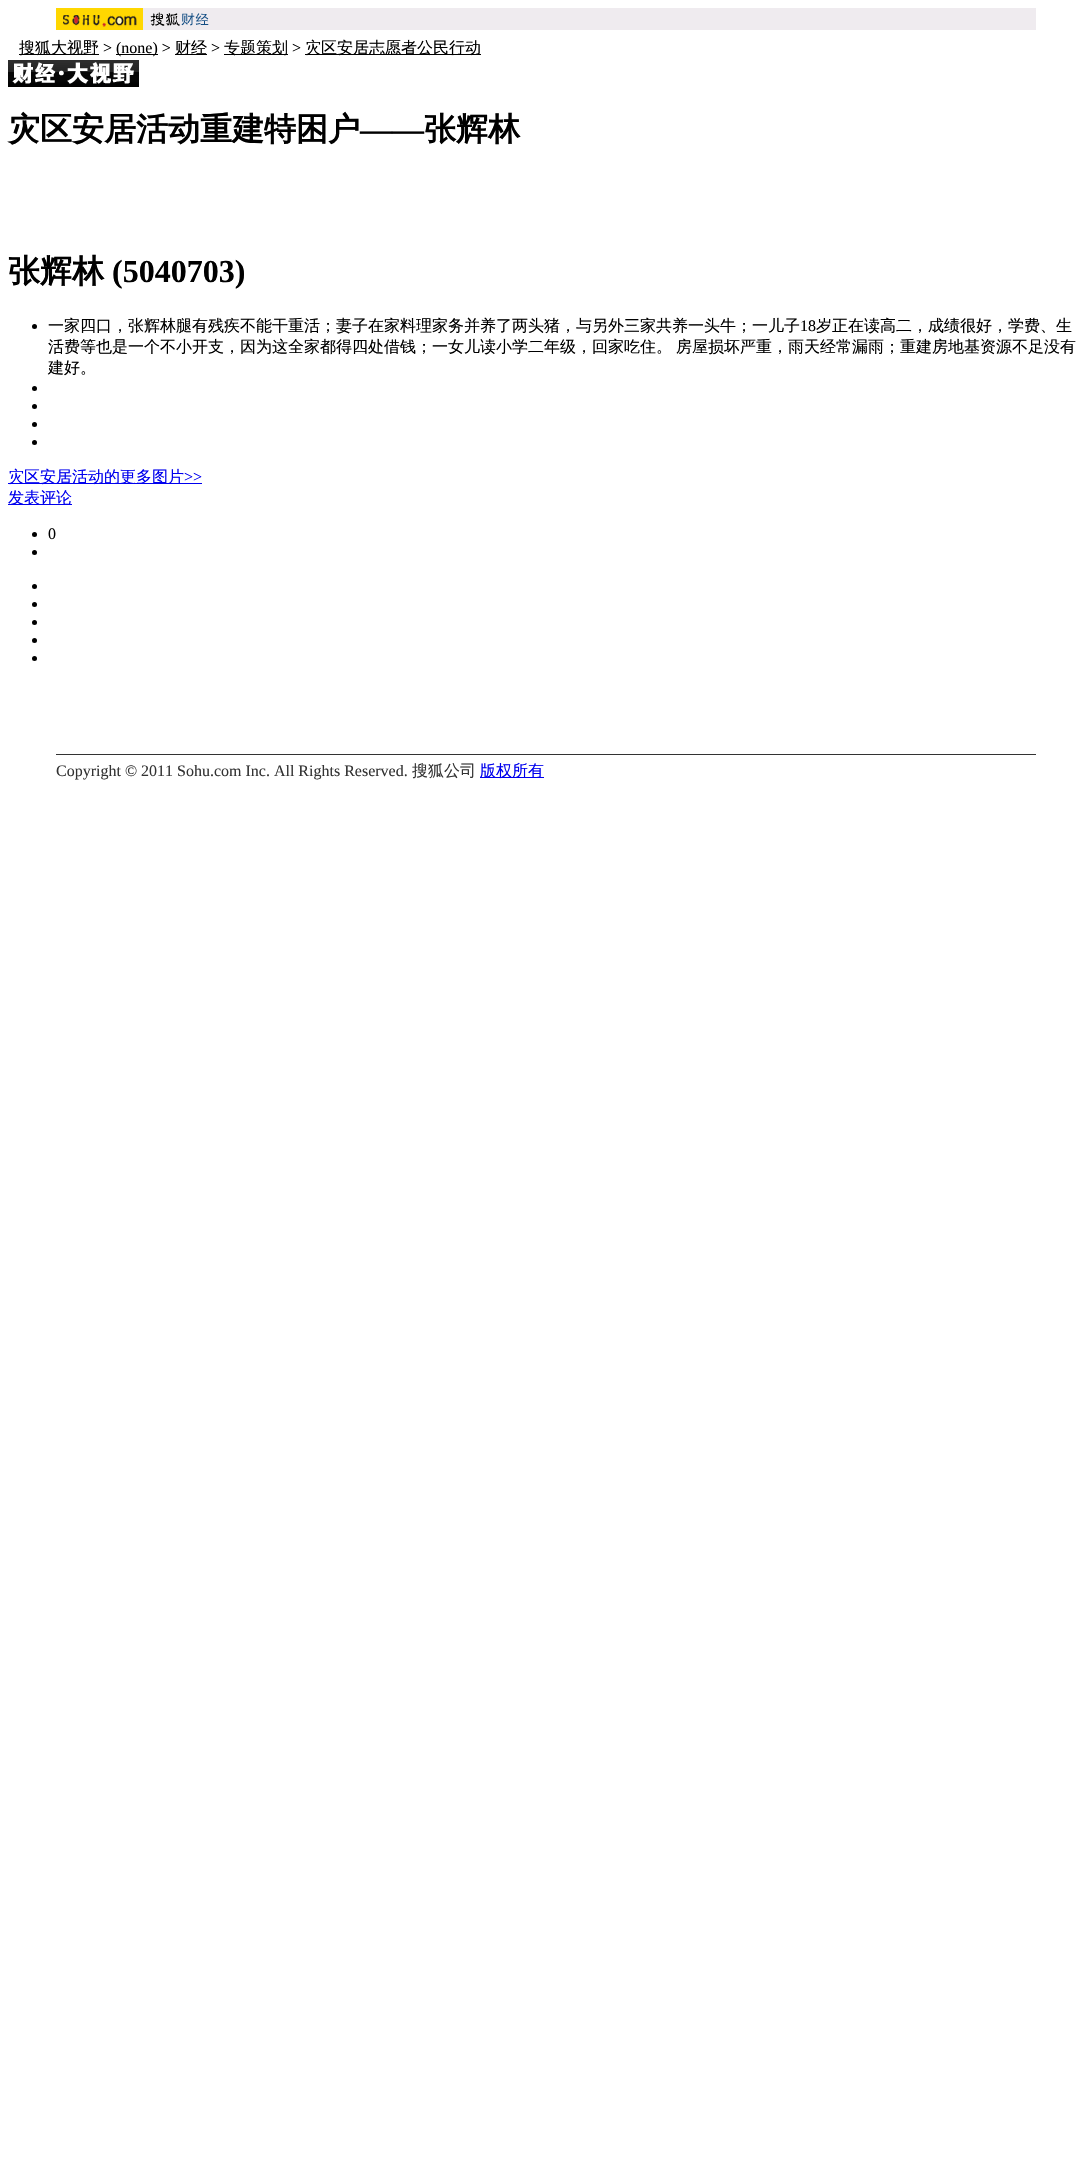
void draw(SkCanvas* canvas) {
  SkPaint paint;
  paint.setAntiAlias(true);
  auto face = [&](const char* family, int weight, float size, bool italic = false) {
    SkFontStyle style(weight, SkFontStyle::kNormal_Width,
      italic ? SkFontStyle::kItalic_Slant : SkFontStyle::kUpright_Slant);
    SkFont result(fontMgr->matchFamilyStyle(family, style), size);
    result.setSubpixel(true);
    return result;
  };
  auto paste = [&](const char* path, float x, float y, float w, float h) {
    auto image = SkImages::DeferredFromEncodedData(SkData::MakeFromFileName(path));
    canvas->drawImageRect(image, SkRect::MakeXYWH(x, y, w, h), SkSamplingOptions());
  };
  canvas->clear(0xffffffff);
  paint.setColor(0xffefebef);
  canvas->drawRect(SkRect::MakeXYWH(143, 8, 893, 22), paint);
  paste("img/1.png", 56, 8, 87, 22);
  paste("img/2.png", 150, 12, 59, 14);
  {
    const struct { float x, y, w, h; SkColor color; } items[] = {
      {19, 54, 80, 1, 0xff000000},
      {116, 54, 42, 1, 0xff000000},
      {175, 54, 32, 1, 0xff000000},
      {224, 54, 64, 1, 0xff000000},
      {305, 54, 176, 1, 0xff000000},
    };
    for (auto [x, y, w, h, color] : items) {
      paint.setColor(color);
      canvas->drawRect(SkRect::MakeXYWH(x, y, w, h), paint);
    }
  }
  paste("img/3.png", 8, 60, 131, 27);
  canvas->drawCircle(34.5f, 326.5f, 2.5f, paint);
  canvas->drawCircle(34.5f, 388.5f, 2.5f, paint);
  canvas->drawCircle(34.5f, 406.5f, 2.5f, paint);
  canvas->drawCircle(34.5f, 424.5f, 2.5f, paint);
  canvas->drawCircle(34.5f, 442.5f, 2.5f, paint);
  paint.setColor(0xff0000ee);
  canvas->drawRect(SkRect::MakeXYWH(8, 483, 194, 1), paint);
  canvas->drawRect(SkRect::MakeXYWH(8, 504, 64, 1), paint);
  paint.setColor(0xff000000);
  canvas->drawCircle(34.5f, 534.5f, 2.5f, paint);
  canvas->drawCircle(34.5f, 552.5f, 2.5f, paint);
  canvas->drawCircle(34.5f, 586.5f, 2.5f, paint);
  canvas->drawCircle(34.5f, 604.5f, 2.5f, paint);
  canvas->drawCircle(34.5f, 622.5f, 2.5f, paint);
  canvas->drawCircle(34.5f, 640.5f, 2.5f, paint);
  canvas->drawCircle(34.5f, 658.5f, 2.5f, paint);
  paint.setColor(0xff333333);
  canvas->drawRect(SkRect::MakeXYWH(56, 754, 980, 1), paint);
  paint.setColor(0xff0000ee);
  canvas->drawRect(SkRect::MakeXYWH(480, 777, 64, 1), paint);
  auto f0 = face("WenQuanYi Zen Hei", 500, 16);
  paint.setColor(0xff000000);
  canvas->drawString("搜狐大视野", 19, 53, f0, paint);
  auto f1 = face("Liberation Serif", 400, 16);
  canvas->drawString(">", 103, 53, f1, paint);
  canvas->drawString("(none) >", 116, 53, f1, paint);
  canvas->drawString("财经", 175, 53, f0, paint);
  canvas->drawString(">", 211, 53, f1, paint);
  canvas->drawString("专题策划", 224, 53, f0, paint);
  canvas->drawString(">", 292, 53, f1, paint);
  canvas->drawString("灾区安居志愿者公民行动", 305, 53, f0, paint);
  auto f2 = face("WenQuanYi Zen Hei", 700, 32);
  canvas->drawString("灾区安居活动重建特困户", 8, 140, f2, paint);
  auto f3 = face("Liberation Serif", 700, 32);
  canvas->drawString("——", 360, 140, f3, paint);
  canvas->drawString("张辉林", 424, 140, f2, paint);
  canvas->drawString("张辉林", 8, 282, f2, paint);
  canvas->drawString("(5040703)", 112, 282, f3, paint);
  canvas->drawString("一家四口，张辉林腿有残疾不能干重活；妻子在家料理家务并养了两头猪，与另外三家共养一头牛；一儿子", 48, 331, f0, paint);
  canvas->drawString("18", 800, 331, f1, paint);
  {
    const struct { const char* s; float x, y; } items[] = {
      {"岁正在读高二，成绩很好，学费、生", 816, 331},
      {"活费等也是一个不小开支，因为这全家都得四处借钱；一女儿读小学二年级，回家吃住。", 48, 352},
      {"房屋损坏严重，雨天经常漏雨；重建房地基资源不足没有", 676, 352},
      {"建好。", 48, 373},
    };
    for (auto [s, x, y] : items) {
      canvas->drawString(s, x, y, f0, paint);
    }
  }
  paint.setColor(0xff0000ee);
  canvas->drawString("灾区安居活动的更多图片", 8, 482, f0, paint);
  canvas->drawString(">>", 184, 482, f1, paint);
  canvas->drawString("发表评论", 8, 503, f0, paint);
  paint.setColor(0xff000000);
  canvas->drawString("0", 48, 539, f1, paint);
  paint.setColor(0xff333333);
  canvas->drawString("Copyright © 2011 Sohu.com Inc. All Rights Reserved.", 56, 776, f1, paint);
  canvas->drawString("搜狐公司", 412, 776, f0, paint);
  paint.setColor(0xff0000ee);
  canvas->drawString("版权所有", 480, 776, f0, paint);
}
